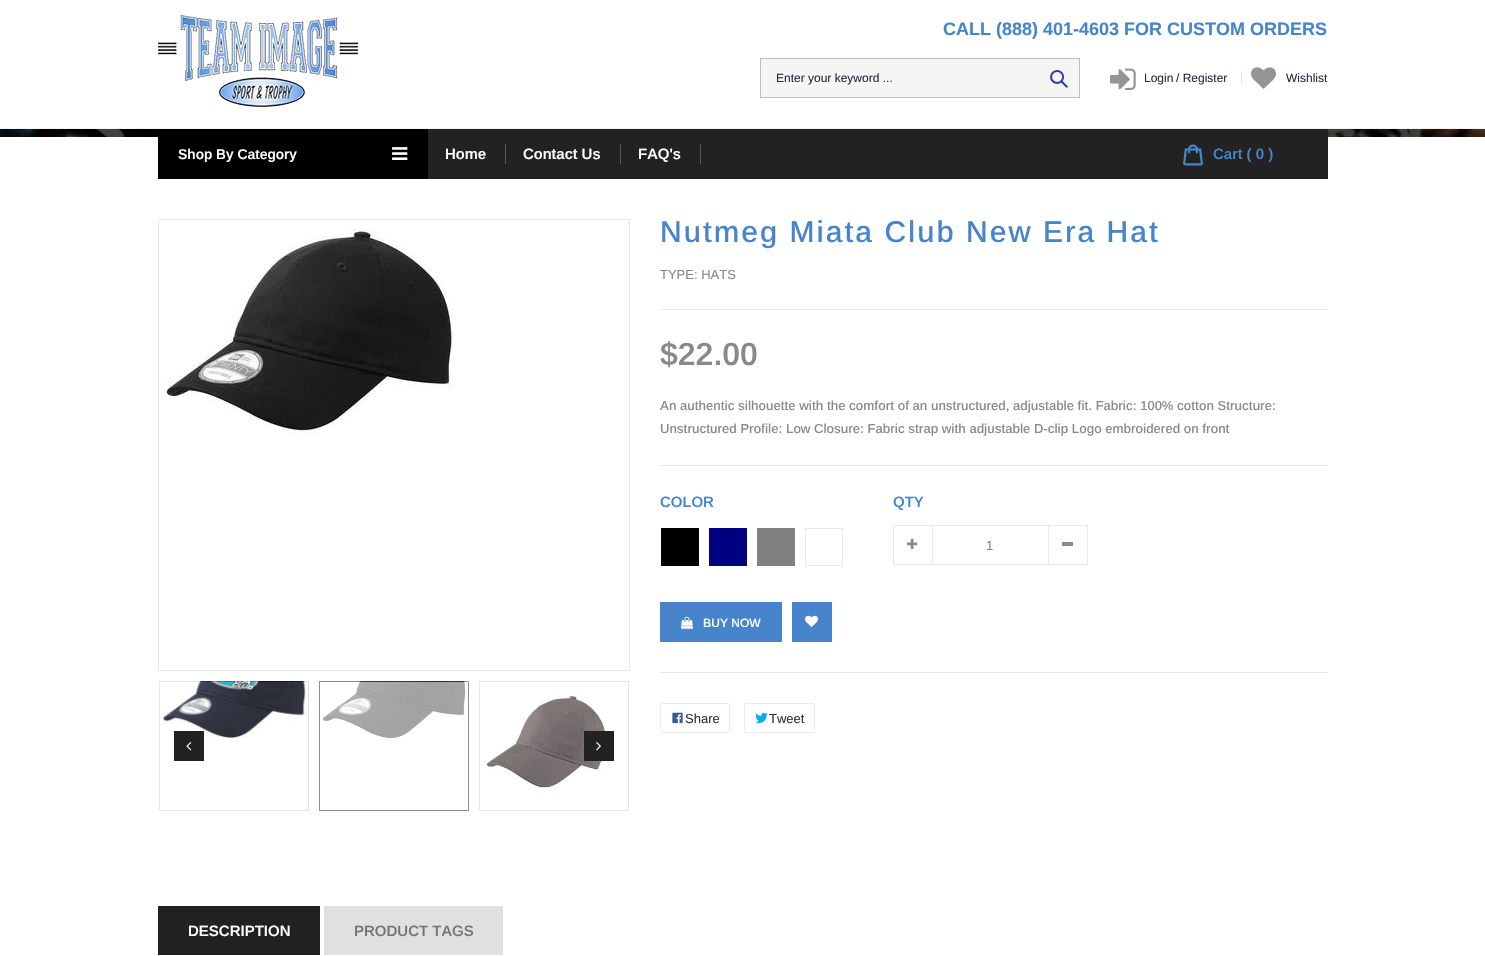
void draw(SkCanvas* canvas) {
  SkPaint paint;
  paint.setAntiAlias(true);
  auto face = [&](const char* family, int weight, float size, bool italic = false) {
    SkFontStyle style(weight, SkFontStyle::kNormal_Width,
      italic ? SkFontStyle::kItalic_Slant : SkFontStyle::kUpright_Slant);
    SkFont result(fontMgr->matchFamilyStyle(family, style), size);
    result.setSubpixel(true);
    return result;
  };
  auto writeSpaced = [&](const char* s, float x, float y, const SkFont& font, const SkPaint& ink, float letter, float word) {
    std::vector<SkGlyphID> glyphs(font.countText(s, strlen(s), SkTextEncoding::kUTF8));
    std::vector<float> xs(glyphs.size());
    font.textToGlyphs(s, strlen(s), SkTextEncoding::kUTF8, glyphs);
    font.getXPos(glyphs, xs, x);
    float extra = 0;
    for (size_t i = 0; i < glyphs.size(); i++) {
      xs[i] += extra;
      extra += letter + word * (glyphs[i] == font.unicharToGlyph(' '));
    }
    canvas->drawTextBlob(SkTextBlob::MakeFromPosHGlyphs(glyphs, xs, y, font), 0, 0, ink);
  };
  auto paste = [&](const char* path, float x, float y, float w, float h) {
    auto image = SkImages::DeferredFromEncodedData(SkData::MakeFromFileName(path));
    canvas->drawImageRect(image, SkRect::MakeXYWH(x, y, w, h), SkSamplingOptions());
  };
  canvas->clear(0xffffffff);
  paint.setColor(0xfff3f3f3);
  canvas->drawRect(SkRect::MakeXYWH(0, 128, 1485, 1), paint);
  paste("img/1.png", 158, 15, 200, 92);
  paint.setColor(0xfff5f5f5);
  canvas->drawRect(SkRect::MakeXYWH(760.5f, 58.5f, 319, 39), paint);
  paint.setStroke(true);
  paint.setStrokeWidth(1);
  paint.setColor(0xffbdbdbd);
  canvas->drawRect(SkRect::MakeXYWH(760.5f, 58.5f, 319, 39), paint);
  paste("img/2.png", 1050, 70, 18, 18);
  paste("img/3.png", 1110, 68, 26, 22);
  paint.setStroke(false);
  paint.setColor(0xffe8e9eb);
  canvas->drawRect(SkRect::MakeXYWH(1241, 71, 1, 14), paint);
  paste("img/4.png", 1251, 67, 25, 22);
  paste("img/5.png", 0, 129, 1485, 8);
  paint.setColor(0xff222222);
  canvas->drawRect(SkRect::MakeXYWH(428, 129, 900, 50), paint);
  paint.setColor(0xff000000);
  canvas->drawRect(SkRect::MakeXYWH(158, 129, 270, 50), paint);
  paste("img/6.png", 392, 147, 16, 13);
  {
    const struct { float x, y, w, h; SkColor color; } items[] = {
      {505, 144, 1, 20, 0xff555555},
      {620, 144, 1, 20, 0xff555555},
      {700, 144, 1, 20, 0xff555555},
    };
    for (auto [x, y, w, h, color] : items) {
      paint.setColor(color);
      canvas->drawRect(SkRect::MakeXYWH(x, y, w, h), paint);
    }
  }
  paste("img/7.png", 1183, 144, 20, 22);
  paint.setStroke(true);
  paint.setColor(0xffe8e9eb);
  canvas->drawRect(SkRect::MakeXYWH(158.5f, 219.5f, 471, 451), paint);
  paste("img/8.png", 163, 228, 292, 208);
  paint.setColor(0xff000000);
  canvas->drawRect(SkRect::MakeXYWH(159.5f, 681.5f, 149, 129), paint);
  paste("img/9.png", 159, 681, 150, 130);
  paint.setColor(0xff404040);
  canvas->drawRect(SkRect::MakeXYWH(319.5f, 681.5f, 149, 129), paint);
  paste("img/10.png", 319, 681, 150, 130);
  paint.setColor(0xff000000);
  canvas->drawRect(SkRect::MakeXYWH(479.5f, 681.5f, 149, 129), paint);
  paste("img/11.png", 479, 681, 150, 130);
  paint.setStroke(false);
  paint.setColor(0xff222222);
  canvas->drawRect(SkRect::MakeXYWH(174, 731, 30, 30), paint);
  paste("img/12.png", 186, 742, 6, 9);
  canvas->drawRect(SkRect::MakeXYWH(584, 731, 30, 30), paint);
  paste("img/13.png", 596, 742, 5, 9);
  {
    const struct { float x, y, w, h; SkColor color; } items[] = {
      {660, 309, 668, 1, 0xffe8e9eb},
      {660, 465, 668, 1, 0xffe8e9eb},
      {661, 528, 38, 38, 0xff000000},
      {709, 528, 38, 38, 0xff000080},
      {757, 528, 38, 38, 0xff808080},
    };
    for (auto [x, y, w, h, color] : items) {
      paint.setColor(color);
      canvas->drawRect(SkRect::MakeXYWH(x, y, w, h), paint);
    }
  }
  paint.setStroke(true);
  paint.setColor(0xffe8e9eb);
  canvas->drawRect(SkRect::MakeXYWH(805.5f, 528.5f, 37, 37), paint);
  canvas->drawRect(SkRect::MakeXYWH(893.5f, 525.5f, 39, 39), paint);
  paste("img/14.png", 907, 538, 11, 11);
  paint.setStroke(false);
  canvas->drawRect(SkRect::MakeXYWH(933, 525, 115, 1), paint);
  canvas->drawRect(SkRect::MakeXYWH(933, 564, 115, 1), paint);
  paint.setStroke(true);
  canvas->drawRect(SkRect::MakeXYWH(1048.5f, 525.5f, 39, 39), paint);
  paint.setStroke(false);
  paint.setColor(0xff898989);
  canvas->drawRect(SkRect::MakeXYWH(1062, 542, 11, 4), paint);
  paint.setColor(0xff4784cb);
  canvas->drawRect(SkRect::MakeXYWH(660, 602, 122, 40), paint);
  paste("img/15.png", 681, 616, 12, 13);
  canvas->drawRect(SkRect::MakeXYWH(792, 602, 40, 40), paint);
  paste("img/16.png", 805, 615, 13, 12);
  paint.setColor(0xffe8e9eb);
  canvas->drawRect(SkRect::MakeXYWH(660, 672, 668, 1), paint);
  paint.setStroke(true);
  paint.setColor(0xffececec);
  canvas->drawRoundRect(SkRect::MakeXYWH(660.5f, 703.5f, 69, 29), 1.5f, 1.5f, paint);
  paste("img/17.png", 672, 712, 11, 12);
  canvas->drawRoundRect(SkRect::MakeXYWH(744.5f, 703.5f, 70, 29), 1.5f, 1.5f, paint);
  paste("img/18.png", 755, 712, 13, 11);
  paint.setStroke(false);
  paint.setColor(0xff212121);
  canvas->drawRect(SkRect::MakeXYWH(158, 906, 162, 49), paint);
  paint.setColor(0xffe0e0e0);
  canvas->drawRect(SkRect::MakeXYWH(324, 906, 179, 49), paint);
  auto f0 = face("Arimo", 700, 18);
  paint.setColor(0xff4784cb);
  canvas->drawString("CALL (888) 401-4603 FOR CUSTOM ORDERS", 943, 35, f0, paint);
  auto f1 = face("Arimo", 400, 12);
  paint.setColor(0xff282c3f);
  {
    const struct { const char* s; float x, y; } items[] = {
      {"Enter your keyword ...", 776, 82},
      {"Login", 1144, 82},
      {"/ Register", 1176, 82},
      {"Wishlist", 1286, 82},
    };
    for (auto [s, x, y] : items) {
      canvas->drawString(s, x, y, f1, paint);
    }
  }
  auto f2 = face("Arimo", 600, 14);
  paint.setColor(0xffffffff);
  canvas->drawString("Shop By Category", 178, 159, f2, paint);
  auto f3 = face("Arimo", 600, 15);
  {
    const struct { const char* s; float x, y; } items[] = {
      {"Home", 445, 159},
      {"Contact Us", 523, 159},
      {"FAQ's", 638, 159},
    };
    for (auto [s, x, y] : items) {
      canvas->drawString(s, x, y, f3, paint);
    }
  }
  paint.setColor(0xff4784cb);
  canvas->drawString("Cart ( 0 )", 1213, 159, f3, paint);
  auto f4 = face("Arimo", 500, 30);
  writeSpaced("Nutmeg Miata Club New Era Hat", 660, 242, f4, paint, 2, 0);
  auto f5 = face("Arimo", 400, 13);
  paint.setColor(0xff898989);
  canvas->drawString("TYPE: HATS", 660, 279, f5, paint);
  auto f6 = face("Arimo", 600, 32);
  canvas->drawString("$22.00", 660, 365, f6, paint);
  auto f7 = face("Arimo", 500, 13);
  canvas->drawString("An authentic silhouette with the comfort of an unstructured, adjustable fit. Fabric: 100% cotton Structure:", 660, 410, f7, paint);
  canvas->drawString("Unstructured Profile: Low Closure: Fabric strap with adjustable D-clip Logo embroidered on front", 660, 433, f7, paint);
  paint.setColor(0xff4784cb);
  canvas->drawString("COLOR", 660, 507, f3, paint);
  canvas->drawString("QTY", 893, 507, f3, paint);
  paint.setColor(0xff898989);
  canvas->drawString("1", 986, 550, f5, paint);
  auto f8 = face("Arimo", 500, 12);
  paint.setColor(0xffffffff);
  canvas->drawString("BUY NOW", 703, 627, f8, paint);
  auto f9 = face("Liberation Sans", 400, 13);
  paint.setColor(0xff333333);
  canvas->drawString("Share", 685, 723, f9, paint);
  canvas->drawString("Tweet", 769, 723, f9, paint);
  paint.setColor(0xffffffff);
  canvas->drawString("DESCRIPTION", 188, 936, f3, paint);
  paint.setColor(0xff757575);
  canvas->drawString("PRODUCT TAGS", 354, 936, f3, paint);
}
